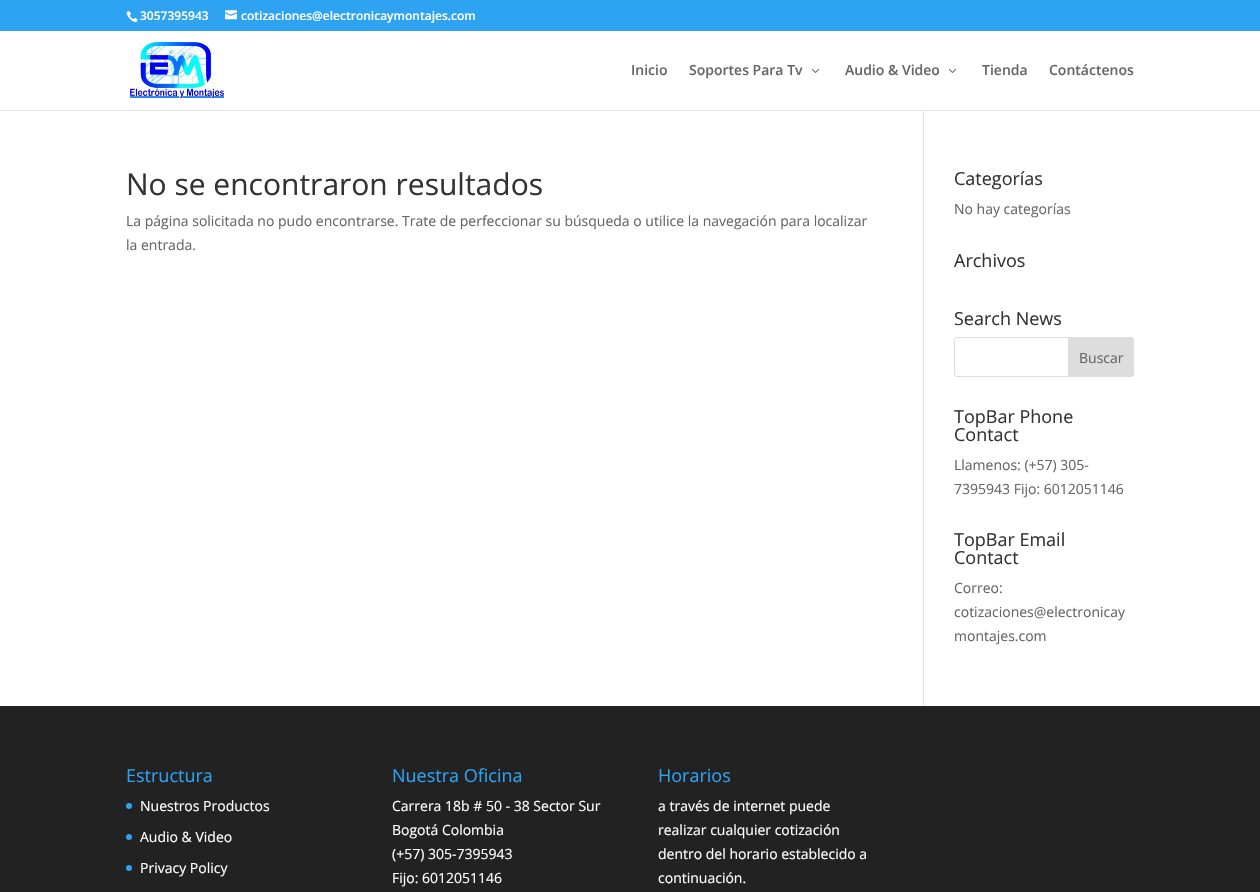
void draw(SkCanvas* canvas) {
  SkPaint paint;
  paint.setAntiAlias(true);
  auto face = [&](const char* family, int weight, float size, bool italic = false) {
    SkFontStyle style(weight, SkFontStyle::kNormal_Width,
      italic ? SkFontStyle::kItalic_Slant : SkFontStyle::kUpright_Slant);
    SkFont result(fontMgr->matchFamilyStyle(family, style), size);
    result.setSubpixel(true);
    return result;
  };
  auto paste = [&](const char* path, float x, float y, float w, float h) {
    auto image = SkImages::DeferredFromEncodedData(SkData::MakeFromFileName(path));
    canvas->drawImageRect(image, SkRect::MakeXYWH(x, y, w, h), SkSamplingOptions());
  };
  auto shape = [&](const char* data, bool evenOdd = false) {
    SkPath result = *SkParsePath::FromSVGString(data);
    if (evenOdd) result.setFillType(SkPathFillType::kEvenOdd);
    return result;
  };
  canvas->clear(0xffffffff);
  paint.setColor(0xff2ea3f2);
  canvas->drawRect(SkRect::MakeXYWH(0, 0, 1260, 31), paint);
  paste("img/1.png", 126, 11, 12, 12);
  paste("img/2.png", 225, 10, 12, 10);
  paint.setColor(0xffe6e6e6);
  canvas->drawRect(SkRect::MakeXYWH(0, 110, 1260, 1), paint);
  paste("img/3.png", 130, 42, 94, 56);
  paste("img/4.png", 811, 68, 9, 5);
  paste("img/4.png", 948, 68, 9, 5);
  paint.setColor(0xffe2e2e2);
  canvas->drawRect(SkRect::MakeXYWH(923, 111, 1, 595), paint);
  paint.setStroke(true);
  paint.setStrokeWidth(1);
  paint.setColor(0xffdddddd);
  canvas->drawRoundRect(SkRect::MakeXYWH(954.5f, 337.5f, 179, 39), 2.5f, 2.5f, paint);
  paint.setStroke(false);
  canvas->drawPath(shape("M1068.5 337.5H1131C1132.5 337.5 1133.5 338.5 1133.5 340V374C1133.5 375.5 1132.5 376.5 1131 376.5H1068.5Z"), paint);
  paint.setStroke(true);
  canvas->drawPath(shape("M1068.5 337.5H1131C1132.5 337.5 1133.5 338.5 1133.5 340V374C1133.5 375.5 1132.5 376.5 1131 376.5H1068.5Z"), paint);
  paint.setStroke(false);
  paint.setColor(0xff222222);
  canvas->drawRect(SkRect::MakeXYWH(0, 706, 1260, 186), paint);
  paint.setColor(0xff2ea3f2);
  canvas->drawCircle(129, 806, 3, paint);
  canvas->drawCircle(129, 837, 3, paint);
  canvas->drawCircle(129, 868, 3, paint);
  auto f0 = face("Open Sans", 600, 12);
  paint.setColor(0xffffffff);
  canvas->drawString("3057395943", 140, 20, f0, paint);
  canvas->drawString("cotizaciones@electronicaymontajes.com", 241, 20, f0, paint);
  auto f1 = face("Open Sans", 600, 14);
  paint.setColor(0xff666666);
  {
    const struct { const char* s; float x, y; } items[] = {
      {"Inicio", 631, 75},
      {"Soportes Para Tv", 689, 75},
      {"Audio & Video", 845, 75},
      {"Tienda", 982, 75},
      {"Contáctenos", 1049, 75},
    };
    for (auto [s, x, y] : items) {
      canvas->drawString(s, x, y, f1, paint);
    }
  }
  auto f2 = face("Open Sans", 400, 30);
  paint.setColor(0xff333333);
  canvas->drawString("No se encontraron resultados", 126, 195, f2, paint);
  auto f3 = face("Open Sans", 400, 14);
  paint.setColor(0xff666666);
  canvas->drawString("La página solicitada no pudo encontrarse. Trate de perfeccionar su búsqueda o utilice la navegación para localizar", 126, 226, f3, paint);
  canvas->drawString("la entrada.", 126, 250, f3, paint);
  auto f4 = face("Open Sans", 400, 18);
  paint.setColor(0xff333333);
  canvas->drawString("Categorías", 954, 185, f4, paint);
  paint.setColor(0xff666666);
  canvas->drawString("No hay categorías", 954, 214, f3, paint);
  paint.setColor(0xff333333);
  canvas->drawString("Archivos", 954, 267, f4, paint);
  canvas->drawString("Search News", 954, 325, f4, paint);
  paint.setColor(0xff666666);
  canvas->drawString("Buscar", 1079, 363, f3, paint);
  paint.setColor(0xff333333);
  canvas->drawString("TopBar Phone", 954, 423, f4, paint);
  canvas->drawString("Contact", 954, 441, f4, paint);
  paint.setColor(0xff666666);
  canvas->drawString("Llamenos: (+57) 305-", 954, 470, f3, paint);
  canvas->drawString("7395943 Fijo: 6012051146", 954, 494, f3, paint);
  paint.setColor(0xff333333);
  canvas->drawString("TopBar Email", 954, 546, f4, paint);
  canvas->drawString("Contact", 954, 564, f4, paint);
  paint.setColor(0xff666666);
  {
    const struct { const char* s; float x, y; } items[] = {
      {"Correo:", 954, 593},
      {"cotizaciones@electronicay", 954, 617},
      {"montajes.com", 954, 641},
    };
    for (auto [s, x, y] : items) {
      canvas->drawString(s, x, y, f3, paint);
    }
  }
  paint.setColor(0xff2ea3f2);
  canvas->drawString("Estructura", 126, 782, f4, paint);
  paint.setColor(0xffffffff);
  {
    const struct { const char* s; float x, y; } items[] = {
      {"Nuestros Productos", 140, 811},
      {"Audio & Video", 140, 842},
      {"Privacy Policy", 140, 873},
    };
    for (auto [s, x, y] : items) {
      canvas->drawString(s, x, y, f3, paint);
    }
  }
  paint.setColor(0xff2ea3f2);
  canvas->drawString("Nuestra Oficina", 392, 782, f4, paint);
  paint.setColor(0xffffffff);
  {
    const struct { const char* s; float x, y; } items[] = {
      {"Carrera 18b # 50 - 38 Sector Sur", 392, 811},
      {"Bogotá Colombia", 392, 835},
      {"(+57) 305-7395943", 392, 859},
      {"Fijo: 6012051146", 392, 883},
    };
    for (auto [s, x, y] : items) {
      canvas->drawString(s, x, y, f3, paint);
    }
  }
  paint.setColor(0xff2ea3f2);
  canvas->drawString("Horarios", 658, 782, f4, paint);
  paint.setColor(0xffffffff);
  {
    const struct { const char* s; float x, y; } items[] = {
      {"a través de internet puede", 658, 811},
      {"realizar cualquier cotización", 658, 835},
      {"dentro del horario establecido a", 658, 859},
      {"continuación.", 658, 883},
    };
    for (auto [s, x, y] : items) {
      canvas->drawString(s, x, y, f3, paint);
    }
  }
}
